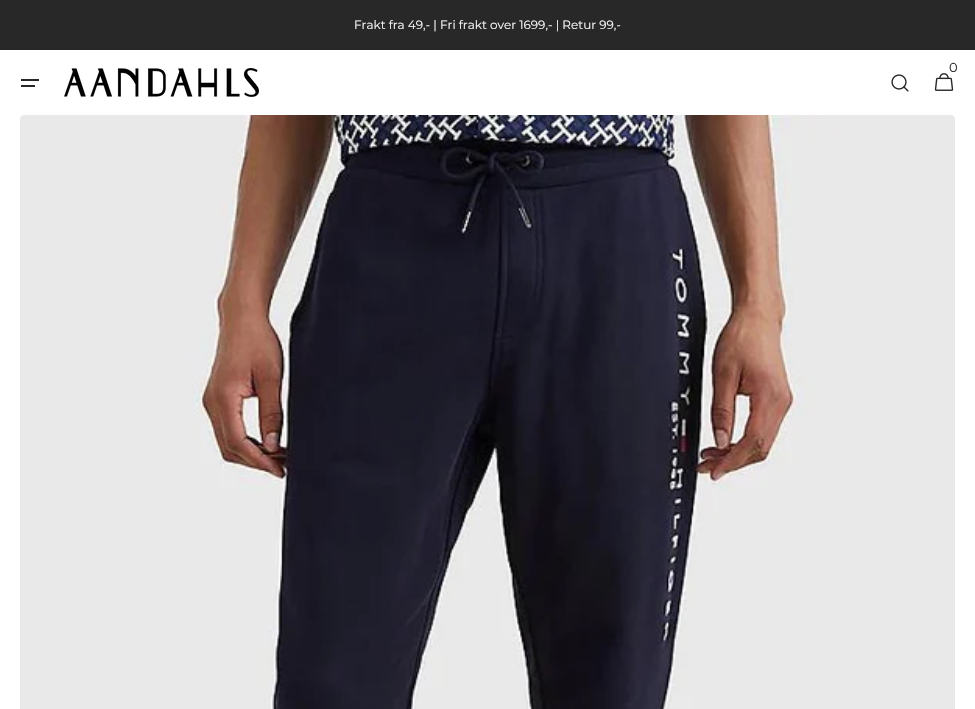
void draw(SkCanvas* canvas) {
  SkPaint paint;
  paint.setAntiAlias(true);
  auto face = [&](const char* family, int weight, float size, bool italic = false) {
    SkFontStyle style(weight, SkFontStyle::kNormal_Width,
      italic ? SkFontStyle::kItalic_Slant : SkFontStyle::kUpright_Slant);
    SkFont result(fontMgr->matchFamilyStyle(family, style), size);
    result.setSubpixel(true);
    return result;
  };
  auto paste = [&](const char* path, float x, float y, float w, float h) {
    auto image = SkImages::DeferredFromEncodedData(SkData::MakeFromFileName(path));
    canvas->drawImageRect(image, SkRect::MakeXYWH(x, y, w, h), SkSamplingOptions());
  };
  canvas->clear(0xffffffff);
  {
    const struct { float x, y, w, h; SkColor color; } items[] = {
      {0, 0, 975, 50, 0xff282828},
      {21, 79, 18, 2, 0xff282828},
      {21, 85, 14, 2, 0xff282828},
    };
    for (auto [x, y, w, h, color] : items) {
      paint.setColor(color);
      canvas->drawRect(SkRect::MakeXYWH(x, y, w, h), paint);
    }
  }
  paste("img/1.png", 64, 68, 195, 29);
  paste("img/2.png", 934, 73, 20, 18);
  paste("img/3.png", 891, 74, 18, 18);
  paste("img/4.png", 20, 115, 935, 594);
  auto f0 = face("Montserrat", 400, 12);
  paint.setColor(0xfff9f9f9);
  canvas->drawString("Frakt fra 49,- | Fri frakt over 1699,- | Retur 99,-", 354, 29, f0, paint);
  auto f1 = face("Montserrat", 400, 13);
  paint.setColor(0xff282828);
  canvas->drawString("0", 949, 72, f1, paint);
}
